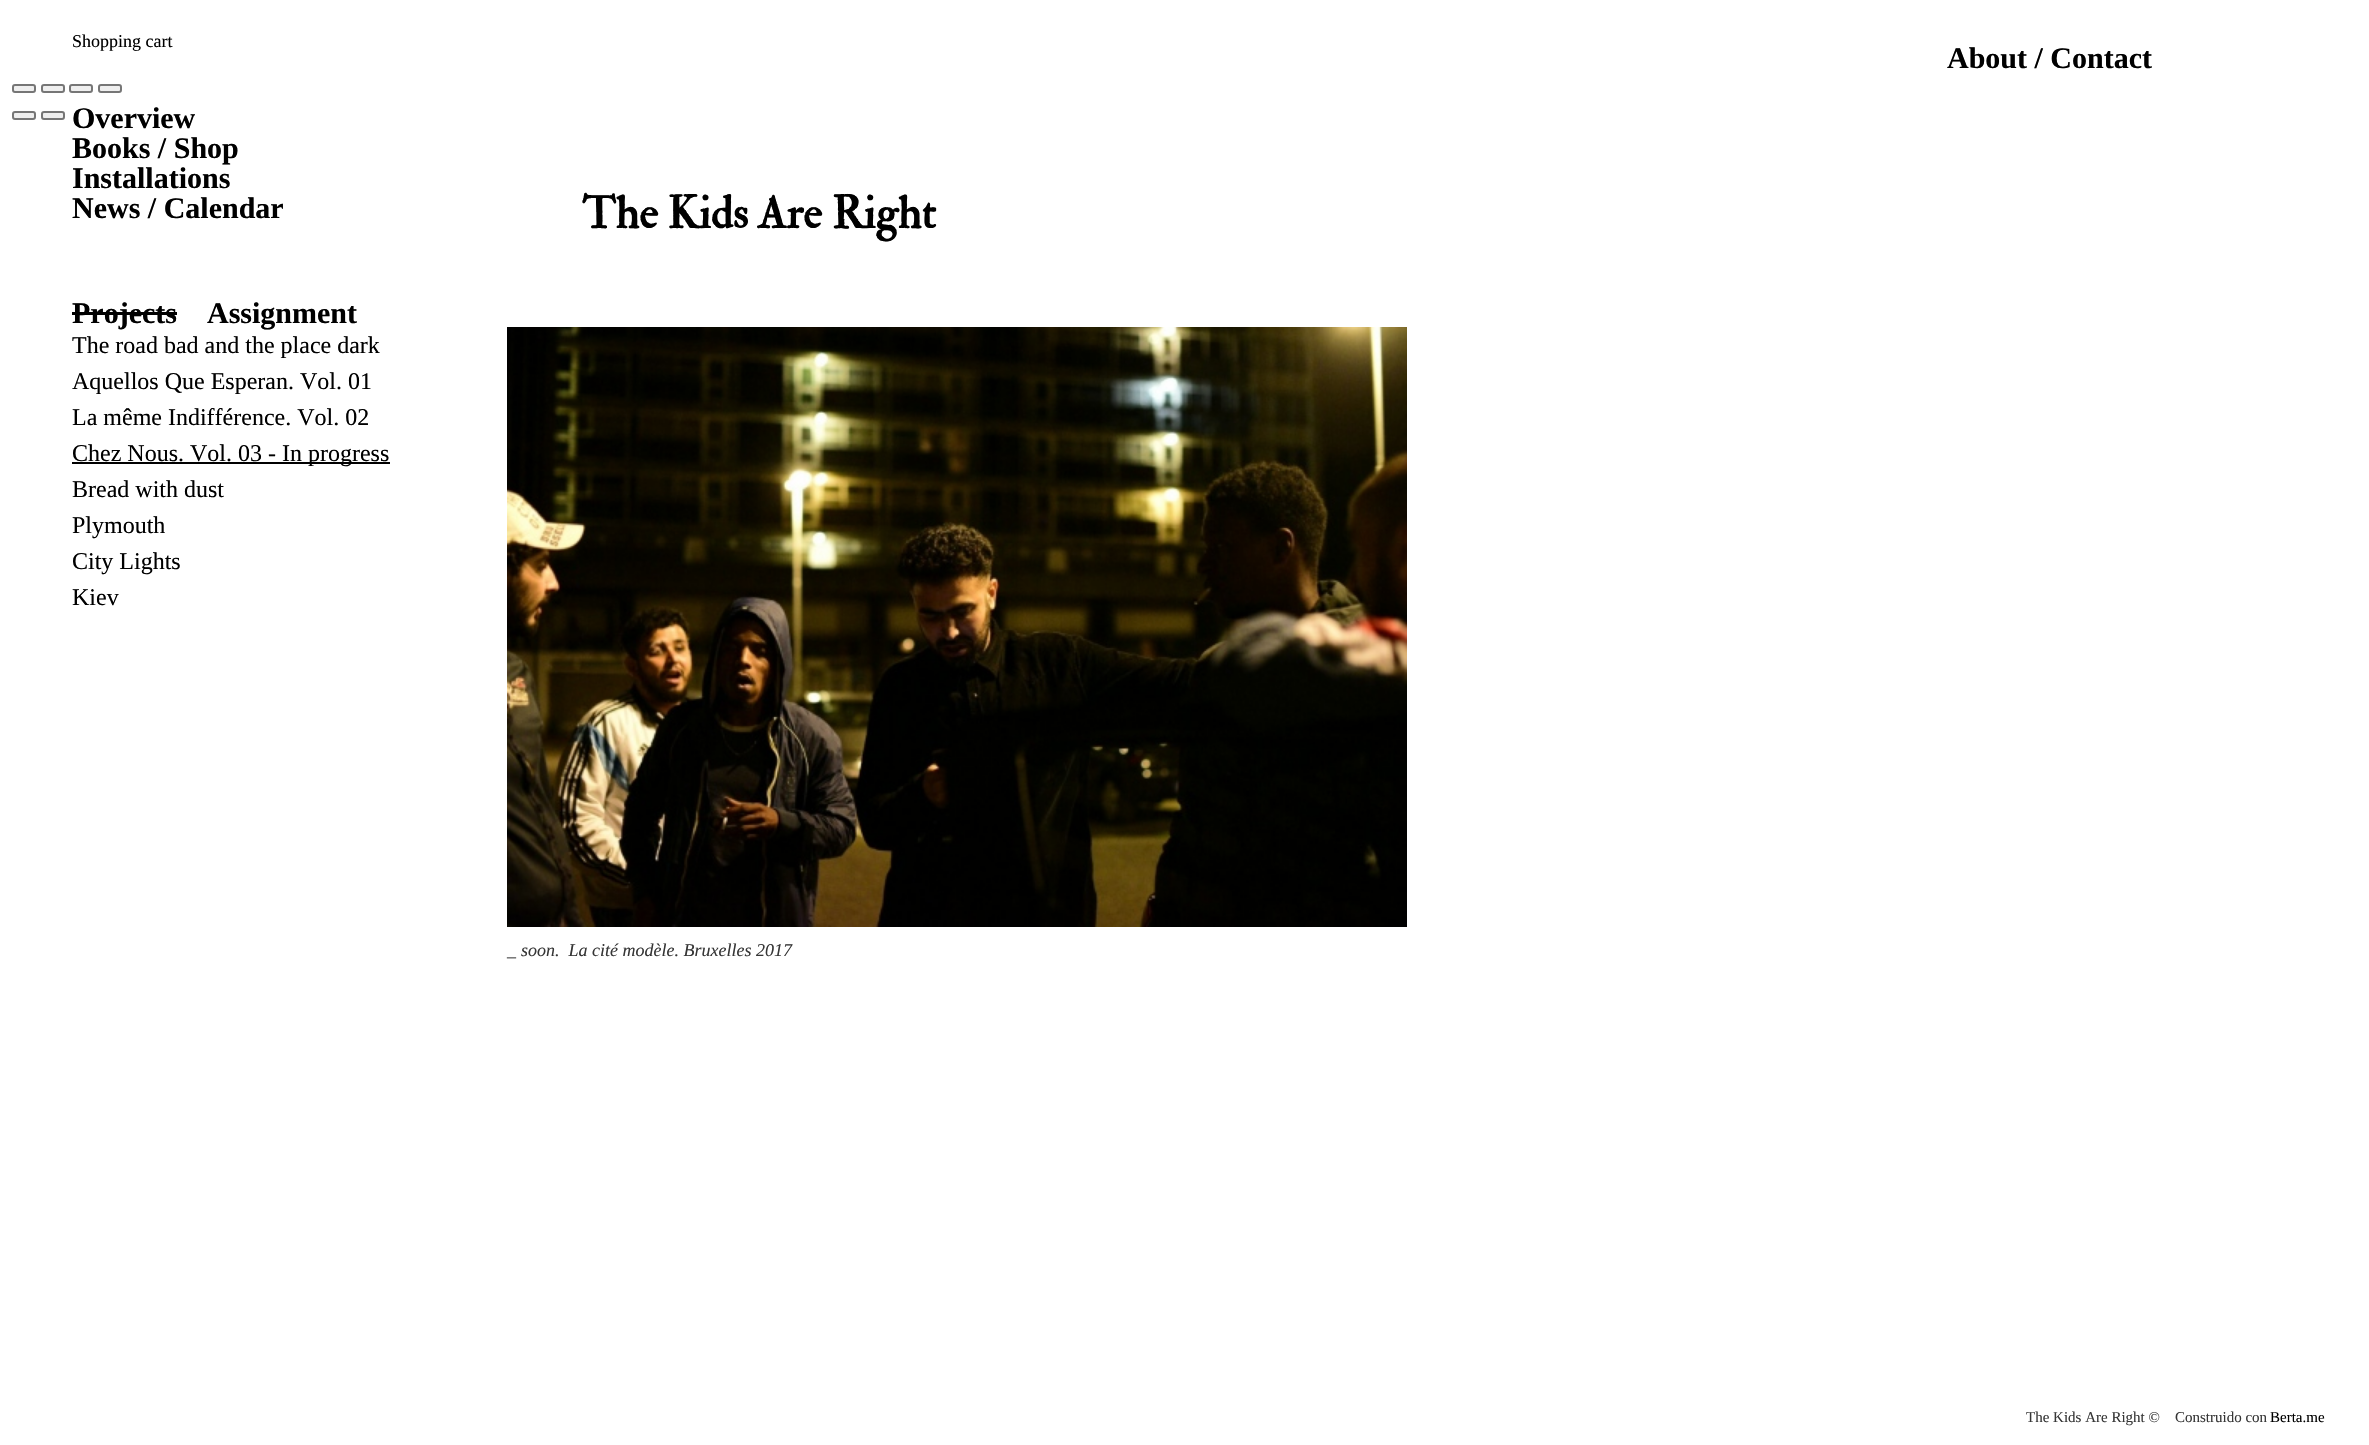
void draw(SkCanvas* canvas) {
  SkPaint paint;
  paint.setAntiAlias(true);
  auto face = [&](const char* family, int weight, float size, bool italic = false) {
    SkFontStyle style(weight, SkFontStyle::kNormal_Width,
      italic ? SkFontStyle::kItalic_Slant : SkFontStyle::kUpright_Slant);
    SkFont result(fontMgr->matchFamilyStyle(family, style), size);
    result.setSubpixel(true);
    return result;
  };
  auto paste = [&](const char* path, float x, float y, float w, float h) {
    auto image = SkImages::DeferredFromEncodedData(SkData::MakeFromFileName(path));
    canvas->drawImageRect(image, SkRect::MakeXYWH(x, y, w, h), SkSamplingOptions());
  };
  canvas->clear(0xffffffff);
  paint.setColor(0xffefefef);
  canvas->drawRoundRect(SkRect::MakeXYWH(13, 85, 22, 7), 2, 2, paint);
  paint.setStroke(true);
  paint.setStrokeWidth(2);
  paint.setColor(0xff767676);
  canvas->drawRoundRect(SkRect::MakeXYWH(13, 85, 22, 7), 2, 2, paint);
  paint.setStroke(false);
  paint.setColor(0xffefefef);
  canvas->drawRoundRect(SkRect::MakeXYWH(42, 85, 22, 7), 2, 2, paint);
  paint.setStroke(true);
  paint.setColor(0xff767676);
  canvas->drawRoundRect(SkRect::MakeXYWH(42, 85, 22, 7), 2, 2, paint);
  paint.setStroke(false);
  paint.setColor(0xffefefef);
  canvas->drawRoundRect(SkRect::MakeXYWH(70, 85, 22, 7), 2, 2, paint);
  paint.setStroke(true);
  paint.setColor(0xff767676);
  canvas->drawRoundRect(SkRect::MakeXYWH(70, 85, 22, 7), 2, 2, paint);
  paint.setStroke(false);
  paint.setColor(0xffefefef);
  canvas->drawRoundRect(SkRect::MakeXYWH(99, 85, 22, 7), 2, 2, paint);
  paint.setStroke(true);
  paint.setColor(0xff767676);
  canvas->drawRoundRect(SkRect::MakeXYWH(99, 85, 22, 7), 2, 2, paint);
  paint.setStroke(false);
  paint.setColor(0xffefefef);
  canvas->drawRoundRect(SkRect::MakeXYWH(13, 112, 22, 7), 2, 2, paint);
  paint.setStroke(true);
  paint.setColor(0xff767676);
  canvas->drawRoundRect(SkRect::MakeXYWH(13, 112, 22, 7), 2, 2, paint);
  paint.setStroke(false);
  paint.setColor(0xffefefef);
  canvas->drawRoundRect(SkRect::MakeXYWH(42, 112, 22, 7), 2, 2, paint);
  paint.setStroke(true);
  paint.setColor(0xff767676);
  canvas->drawRoundRect(SkRect::MakeXYWH(42, 112, 22, 7), 2, 2, paint);
  paint.setStroke(false);
  paint.setColor(0xff000000);
  canvas->drawRect(SkRect::MakeXYWH(72, 312, 105, 3), paint);
  canvas->drawRect(SkRect::MakeXYWH(72, 462, 318, 2), paint);
  paste("img/1.png", 507, 327, 900, 600);
  auto f0 = face("Liberation Serif", 400, 18);
  canvas->drawString("Shopping cart", 72, 47, f0, paint);
  auto f1 = face("Liberation Serif", 700, 30);
  {
    const struct { const char* s; float x, y; } items[] = {
      {"About / Contact", 1947, 68},
      {"Overview", 72, 128},
      {"Books / Shop", 72, 158},
      {"Installations", 72, 188},
      {"News / Calendar", 72, 218},
      {"Projects", 72, 323},
    };
    for (auto [s, x, y] : items) {
      canvas->drawString(s, x, y, f1, paint);
    }
  }
  auto f2 = face("Liberation Serif", 400, 24);
  {
    const struct { const char* s; float x, y; } items[] = {
      {"The road bad and the place dark", 72, 353},
      {"Aquellos Que Esperan. Vol. 01", 72, 389},
      {"La même Indifférence. Vol. 02", 72, 425},
      {"Chez Nous. Vol. 03 - In progress", 72, 461},
      {"Bread with dust", 72, 497},
      {"Plymouth", 72, 533},
      {"City Lights", 72, 569},
      {"Kiev", 72, 605},
    };
    for (auto [s, x, y] : items) {
      canvas->drawString(s, x, y, f2, paint);
    }
  }
  canvas->drawString("Assignment", 207, 323, f1, paint);
  auto f3 = face("IM FELL Double Pica", 700, 45);
  canvas->drawString("The Kids Are Right", 582, 228, f3, paint);
  auto f4 = face("Liberation Serif", 400, 18, true);
  paint.setColor(0xff363636);
  canvas->drawString("soon.  La cité modèle. Bruxelles 2017", 521, 956, f4, paint);
  canvas->drawString("_", 507, 956, f0, paint);
  auto f5 = face("Liberation Serif", 400, 15);
  canvas->drawString("The Kids Are Right ©", 2026, 1422, f5, paint);
  canvas->drawString("Construido con", 2175, 1422, f5, paint);
  paint.setColor(0xff000000);
  canvas->drawString("Berta.me", 2270, 1422, f5, paint);
}
